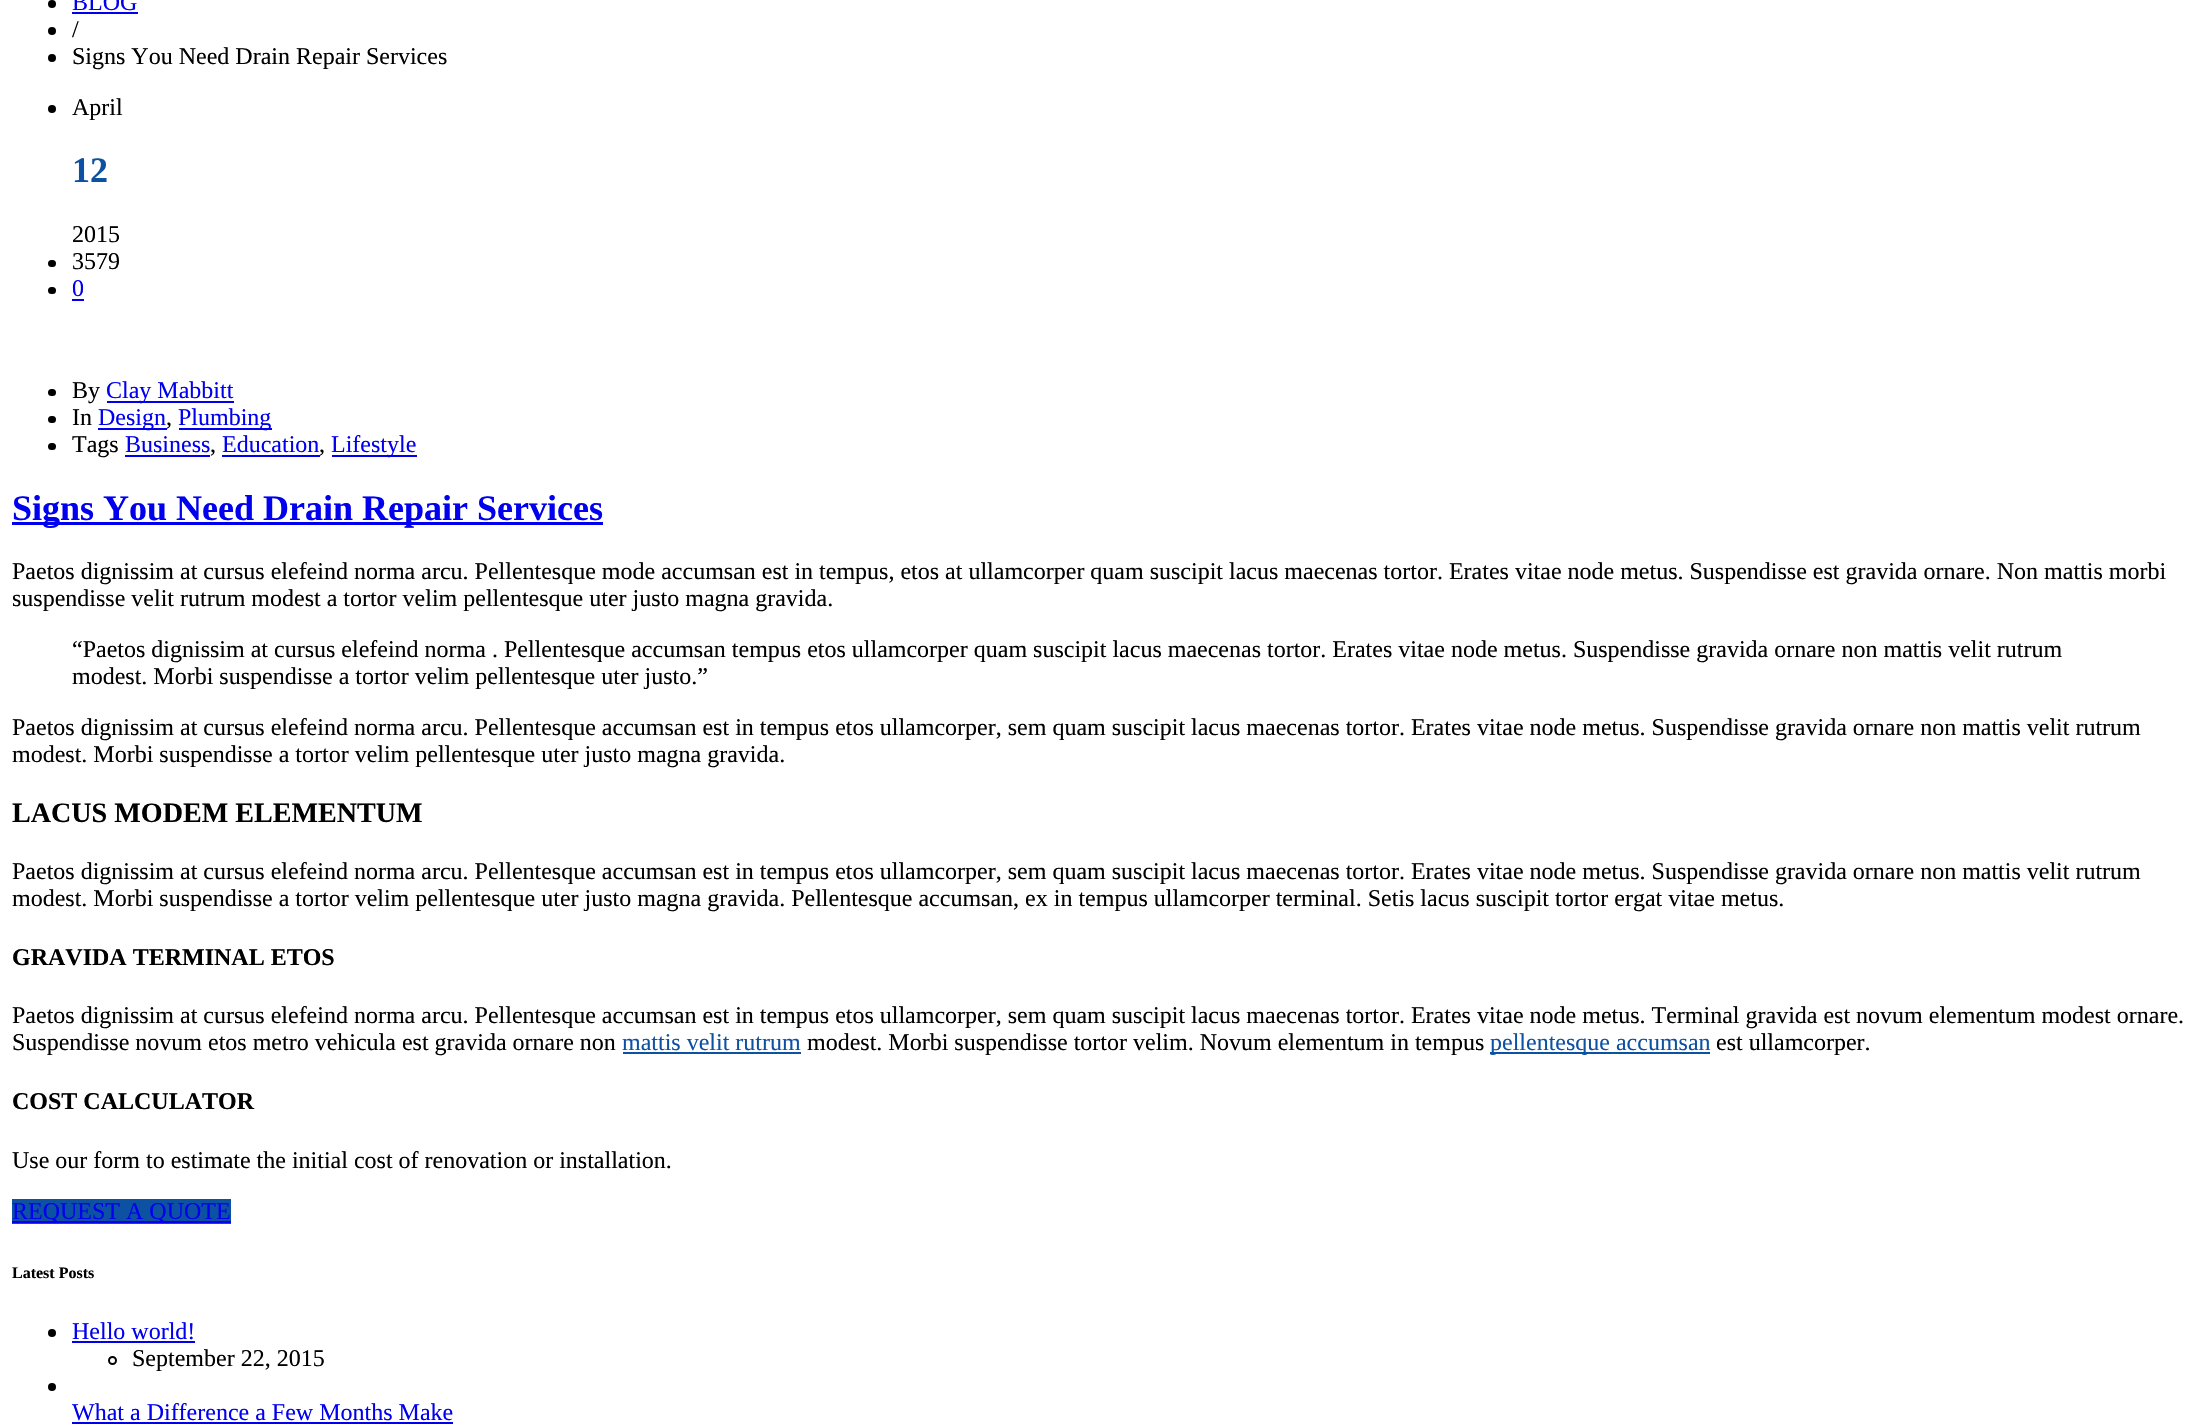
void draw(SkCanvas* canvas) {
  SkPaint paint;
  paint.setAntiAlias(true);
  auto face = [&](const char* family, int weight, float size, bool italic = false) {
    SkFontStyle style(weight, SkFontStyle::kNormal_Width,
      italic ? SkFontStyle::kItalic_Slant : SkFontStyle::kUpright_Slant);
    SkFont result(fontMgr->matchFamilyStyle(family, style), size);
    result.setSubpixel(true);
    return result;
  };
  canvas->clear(0xffffffff);
  paint.setColor(0xff000000);
  canvas->drawCircle(52, 4, 4, paint);
  paint.setColor(0xff0000ee);
  canvas->drawRect(SkRect::MakeXYWH(72, 12, 66, 2), paint);
  paint.setColor(0xff000000);
  canvas->drawCircle(52, 31, 4, paint);
  canvas->drawCircle(52, 58, 4, paint);
  canvas->drawCircle(52, 109, 4, paint);
  canvas->drawRoundRect(SkRect::MakeXYWH(48, 260, 8, 7), 3.5f, 3.5f, paint);
  canvas->drawRoundRect(SkRect::MakeXYWH(48, 287, 8, 7), 3.5f, 3.5f, paint);
  paint.setColor(0xff0000ee);
  canvas->drawRect(SkRect::MakeXYWH(72, 299, 12, 2), paint);
  paint.setColor(0xff000000);
  canvas->drawRoundRect(SkRect::MakeXYWH(48, 389, 8, 7), 3.5f, 3.5f, paint);
  paint.setColor(0xff0000ee);
  canvas->drawRect(SkRect::MakeXYWH(107, 401, 127, 2), paint);
  paint.setColor(0xff000000);
  canvas->drawRoundRect(SkRect::MakeXYWH(48, 416, 8, 7), 3.5f, 3.5f, paint);
  paint.setColor(0xff0000ee);
  canvas->drawRect(SkRect::MakeXYWH(98, 428, 69, 2), paint);
  canvas->drawRect(SkRect::MakeXYWH(179, 428, 93, 2), paint);
  paint.setColor(0xff000000);
  canvas->drawRoundRect(SkRect::MakeXYWH(48, 443, 8, 7), 3.5f, 3.5f, paint);
  {
    const struct { float x, y, w, h; SkColor color; } items[] = {
      {125, 455, 85, 2, 0xff0000ee},
      {222, 455, 98, 2, 0xff0000ee},
      {332, 455, 85, 2, 0xff0000ee},
      {12, 522, 591, 3, 0xff0000ee},
      {623, 1052, 178, 2, 0xff0d51a2},
      {1490, 1052, 220, 2, 0xff0d51a2},
      {12, 1199, 219, 25, 0xff0d51a2},
      {12, 1221, 219, 2, 0xff0000ee},
    };
    for (auto [x, y, w, h, color] : items) {
      paint.setColor(color);
      canvas->drawRect(SkRect::MakeXYWH(x, y, w, h), paint);
    }
  }
  paint.setColor(0xff000000);
  canvas->drawCircle(52, 1333, 4, paint);
  paint.setColor(0xff0000ee);
  canvas->drawRect(SkRect::MakeXYWH(72, 1341, 123, 2), paint);
  paint.setStroke(true);
  paint.setStrokeWidth(2);
  paint.setColor(0xff000000);
  canvas->drawCircle(112.5f, 1360.5f, 3.5f, paint);
  paint.setStroke(false);
  canvas->drawCircle(52, 1387, 4, paint);
  paint.setColor(0xff0000ee);
  canvas->drawRect(SkRect::MakeXYWH(72, 1422, 381, 2), paint);
  auto f0 = face("Liberation Serif", 400, 24);
  canvas->drawString("BLOG", 72, 10, f0, paint);
  paint.setColor(0xff000000);
  {
    const struct { const char* s; float x, y; } items[] = {
      {"/", 72, 37},
      {"Signs You Need Drain Repair Services", 72, 64},
      {"April", 72, 115},
    };
    for (auto [s, x, y] : items) {
      canvas->drawString(s, x, y, f0, paint);
    }
  }
  auto f1 = face("Liberation Serif", 700, 36);
  paint.setColor(0xff0d51a2);
  canvas->drawString("12", 72, 182, f1, paint);
  paint.setColor(0xff000000);
  canvas->drawString("2015", 72, 242, f0, paint);
  canvas->drawString("3579", 72, 269, f0, paint);
  paint.setColor(0xff0000ee);
  canvas->drawString("0", 72, 296, f0, paint);
  paint.setColor(0xff000000);
  canvas->drawString("By", 72, 398, f0, paint);
  paint.setColor(0xff0000ee);
  canvas->drawString("Clay Mabbitt", 106, 398, f0, paint);
  paint.setColor(0xff000000);
  canvas->drawString("In", 72, 425, f0, paint);
  paint.setColor(0xff0000ee);
  canvas->drawString("Design", 98, 425, f0, paint);
  canvas->drawString("Plumbing", 178, 425, f0, paint);
  paint.setColor(0xff000000);
  canvas->drawString(",", 166, 425, f0, paint);
  canvas->drawString("Tags", 72, 452, f0, paint);
  paint.setColor(0xff0000ee);
  {
    const struct { const char* s; float x, y; } items[] = {
      {"Business", 125, 452},
      {"Education", 222, 452},
      {"Lifestyle", 331, 452},
    };
    for (auto [s, x, y] : items) {
      canvas->drawString(s, x, y, f0, paint);
    }
  }
  paint.setColor(0xff000000);
  canvas->drawString(",", 210, 452, f0, paint);
  canvas->drawString(",", 319, 452, f0, paint);
  paint.setColor(0xff0000ee);
  canvas->drawString("Signs You Need Drain Repair Services", 12, 520, f1, paint);
  paint.setColor(0xff000000);
  {
    const struct { const char* s; float x, y; } items[] = {
      {"Paetos dignissim at cursus elefeind norma arcu. Pellentesque mode accumsan est in tempus, etos at ullamcorper quam suscipit lacus maecenas tortor. Erates vitae node metus. Suspendisse est gravida ornare. Non mattis morbi", 12, 579},
      {"suspendisse velit rutrum modest a tortor velim pellentesque uter justo magna gravida.", 12, 606},
      {"“Paetos dignissim at cursus elefeind norma . Pellentesque accumsan tempus etos ullamcorper quam suscipit lacus maecenas tortor. Erates vitae node metus. Suspendisse gravida ornare non mattis velit rutrum", 72, 657},
      {"modest. Morbi suspendisse a tortor velim pellentesque uter justo.”", 72, 684},
      {"Paetos dignissim at cursus elefeind norma arcu. Pellentesque accumsan est in tempus etos ullamcorper, sem quam suscipit lacus maecenas tortor. Erates vitae node metus. Suspendisse gravida ornare non mattis velit rutrum", 12, 735},
      {"modest. Morbi suspendisse a tortor velim pellentesque uter justo magna gravida.", 12, 762},
    };
    for (auto [s, x, y] : items) {
      canvas->drawString(s, x, y, f0, paint);
    }
  }
  auto f2 = face("Liberation Serif", 700, 28.1f);
  canvas->drawString("LACUS MODEM ELEMENTUM", 12, 822, f2, paint);
  canvas->drawString("Paetos dignissim at cursus elefeind norma arcu. Pellentesque accumsan est in tempus etos ullamcorper, sem quam suscipit lacus maecenas tortor. Erates vitae node metus. Suspendisse gravida ornare non mattis velit rutrum", 12, 879, f0, paint);
  canvas->drawString("modest. Morbi suspendisse a tortor velim pellentesque uter justo magna gravida. Pellentesque accumsan, ex in tempus ullamcorper terminal. Setis lacus suscipit tortor ergat vitae metus.", 12, 906, f0, paint);
  auto f3 = face("Liberation Serif", 700, 24);
  canvas->drawString("GRAVIDA TERMINAL ETOS", 12, 965, f3, paint);
  canvas->drawString("Paetos dignissim at cursus elefeind norma arcu. Pellentesque accumsan est in tempus etos ullamcorper, sem quam suscipit lacus maecenas tortor. Erates vitae node metus. Terminal gravida est novum elementum modest ornare.", 12, 1023, f0, paint);
  canvas->drawString("Suspendisse novum etos metro vehicula est gravida ornare non", 12, 1050, f0, paint);
  paint.setColor(0xff0d51a2);
  canvas->drawString("mattis velit rutrum", 622, 1050, f0, paint);
  paint.setColor(0xff000000);
  canvas->drawString("modest. Morbi suspendisse tortor velim. Novum elementum in tempus", 807, 1050, f0, paint);
  paint.setColor(0xff0d51a2);
  canvas->drawString("pellentesque accumsan", 1490, 1050, f0, paint);
  paint.setColor(0xff000000);
  canvas->drawString("est ullamcorper.", 1716, 1050, f0, paint);
  canvas->drawString("COST CALCULATOR", 12, 1109, f3, paint);
  canvas->drawString("Use our form to estimate the initial cost of renovation or installation.", 12, 1168, f0, paint);
  paint.setColor(0xff0000ee);
  canvas->drawString("REQUEST A QUOTE", 12, 1219, f0, paint);
  auto f4 = face("Liberation Serif", 700, 16);
  paint.setColor(0xff000000);
  canvas->drawString("Latest Posts", 12, 1278, f4, paint);
  paint.setColor(0xff0000ee);
  canvas->drawString("Hello world!", 72, 1339, f0, paint);
  paint.setColor(0xff000000);
  canvas->drawString("September 22, 2015", 132, 1366, f0, paint);
  paint.setColor(0xff0000ee);
  canvas->drawString("What a Difference a Few Months Make", 72, 1420, f0, paint);
}
